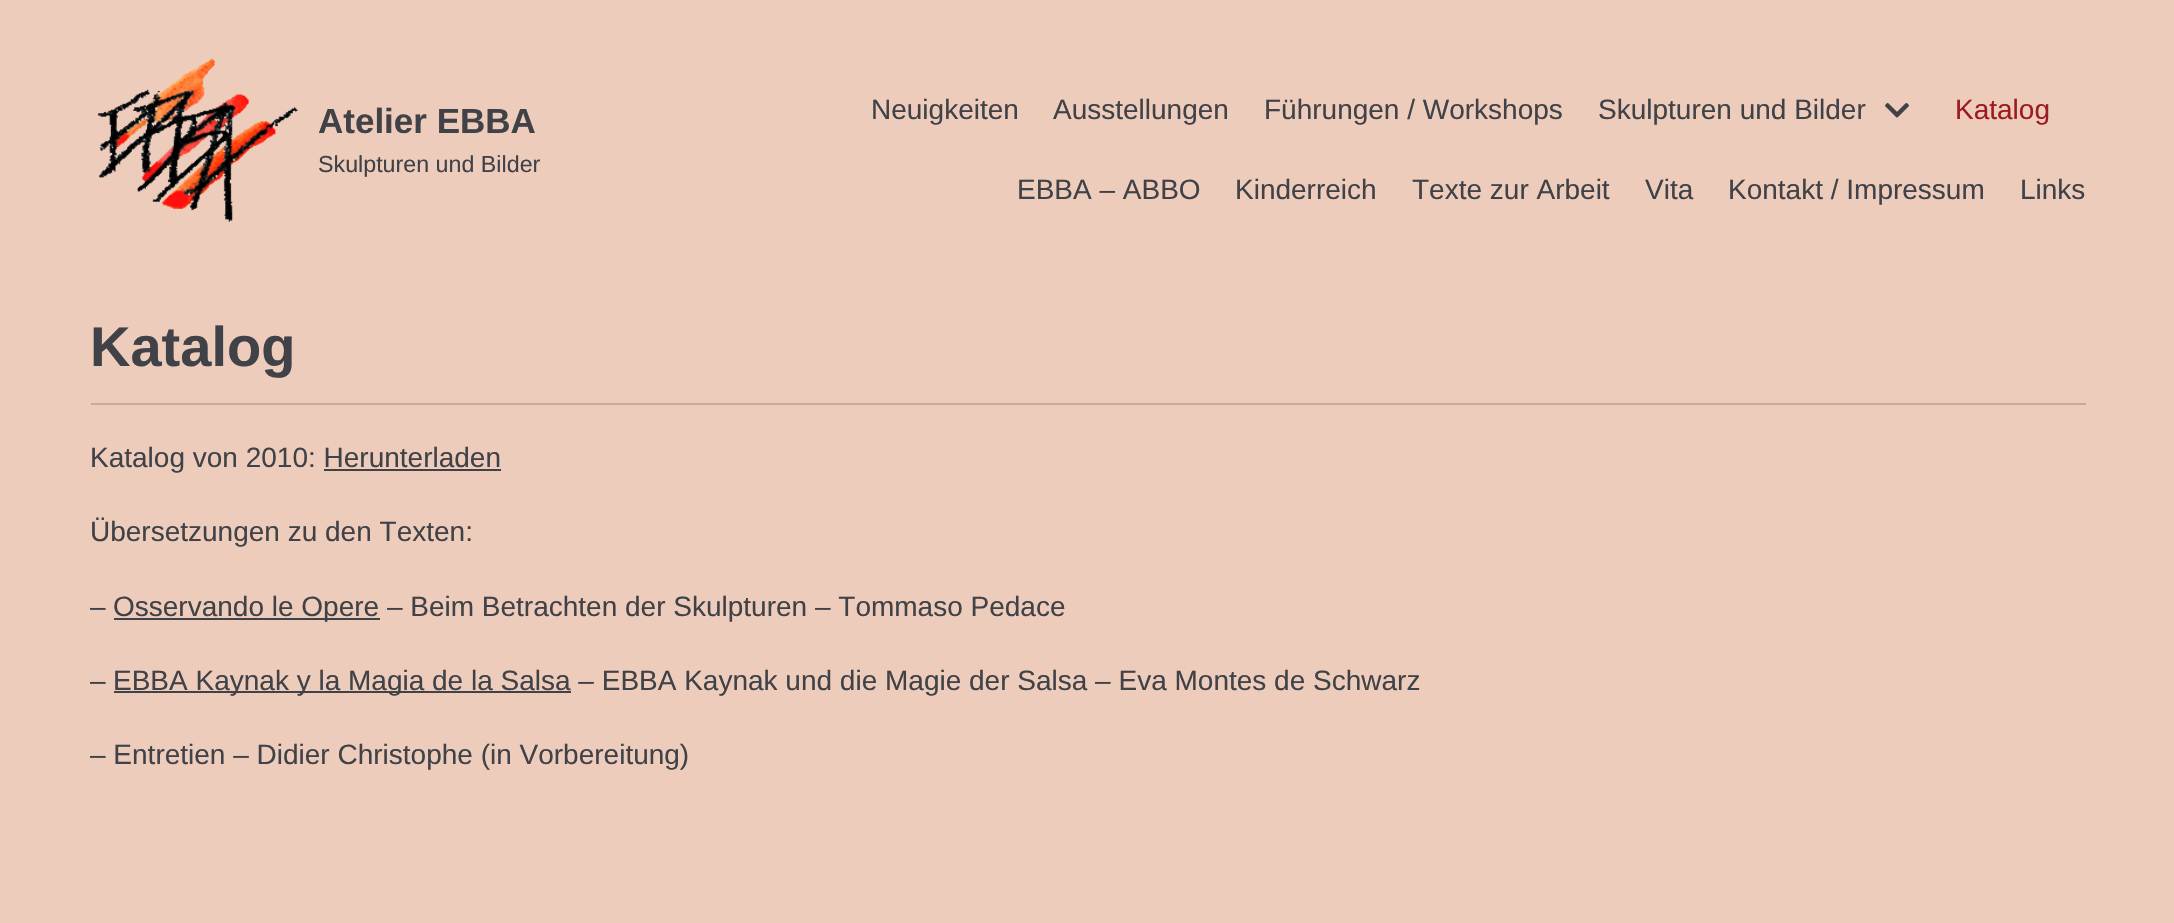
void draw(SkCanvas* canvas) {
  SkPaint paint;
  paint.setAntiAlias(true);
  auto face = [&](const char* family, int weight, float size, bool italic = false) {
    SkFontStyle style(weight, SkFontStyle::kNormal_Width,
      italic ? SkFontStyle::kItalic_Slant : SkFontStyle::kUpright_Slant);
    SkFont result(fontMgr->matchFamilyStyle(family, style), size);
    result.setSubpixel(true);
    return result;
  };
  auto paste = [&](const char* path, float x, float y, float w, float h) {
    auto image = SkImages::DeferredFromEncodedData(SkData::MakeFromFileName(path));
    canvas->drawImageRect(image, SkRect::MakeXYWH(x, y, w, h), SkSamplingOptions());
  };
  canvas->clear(0xffedccbb);
  paste("img/1.png", 97, 58, 201, 164);
  paste("img/2.png", 1885, 103, 24, 15);
  {
    const struct { float x, y, w, h; SkColor color; } items[] = {
      {91, 403, 1995, 2, 0xffc6aa9d},
      {324, 469, 177, 2, 0xff404248},
      {114, 618, 266, 2, 0xff404248},
      {114, 691, 457, 2, 0xff404248},
    };
    for (auto [x, y, w, h, color] : items) {
      paint.setColor(color);
      canvas->drawRect(SkRect::MakeXYWH(x, y, w, h), paint);
    }
  }
  auto f0 = face("Liberation Sans", 700, 35);
  canvas->drawString("Atelier EBBA", 318, 133, f0, paint);
  auto f1 = face("Liberation Sans", 400, 23.25f);
  canvas->drawString("Skulpturen und Bilder", 318, 172, f1, paint);
  auto f2 = face("Liberation Sans", 400, 28);
  {
    const struct { const char* s; float x, y; } items[] = {
      {"Neuigkeiten", 871, 119},
      {"Ausstellungen", 1053, 119},
      {"Führungen / Workshops", 1264, 119},
      {"Skulpturen und Bilder", 1598, 119},
    };
    for (auto [s, x, y] : items) {
      canvas->drawString(s, x, y, f2, paint);
    }
  }
  paint.setColor(0xff9c1a22);
  canvas->drawString("Katalog", 1955, 119, f2, paint);
  paint.setColor(0xff404248);
  {
    const struct { const char* s; float x, y; } items[] = {
      {"EBBA – ABBO", 1017, 199},
      {"Kinderreich", 1235, 199},
      {"Texte zur Arbeit", 1412, 199},
      {"Vita", 1645, 199},
      {"Kontakt / Impressum", 1728, 199},
      {"Links", 2020, 199},
    };
    for (auto [s, x, y] : items) {
      canvas->drawString(s, x, y, f2, paint);
    }
  }
  auto f3 = face("Liberation Sans", 700, 56);
  canvas->drawString("Katalog", 90, 366, f3, paint);
  {
    const struct { const char* s; float x, y; } items[] = {
      {"Katalog von 2010: Herunterladen", 90, 467},
      {"Übersetzungen zu den Texten:", 90, 541},
      {"–", 90, 616},
      {"Osservando le Opere – Beim Betrachten der Skulpturen – Tommaso Pedace", 113, 616},
      {"–", 90, 690},
      {"EBBA Kaynak y la Magia de la Salsa – EBBA Kaynak und die Magie der Salsa – Eva Montes de Schwarz", 113, 690},
      {"– Entretien – Didier Christophe (in Vorbereitung)", 90, 764},
    };
    for (auto [s, x, y] : items) {
      canvas->drawString(s, x, y, f2, paint);
    }
  }
}
